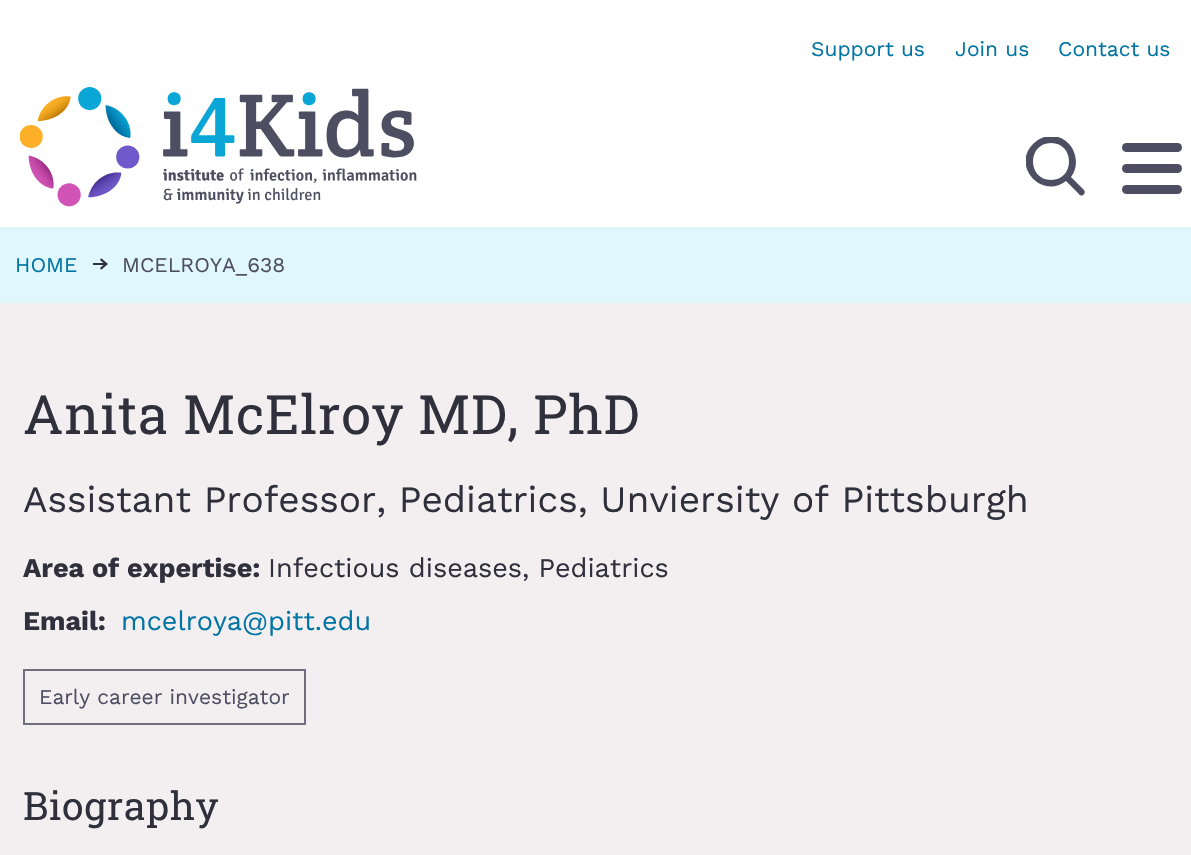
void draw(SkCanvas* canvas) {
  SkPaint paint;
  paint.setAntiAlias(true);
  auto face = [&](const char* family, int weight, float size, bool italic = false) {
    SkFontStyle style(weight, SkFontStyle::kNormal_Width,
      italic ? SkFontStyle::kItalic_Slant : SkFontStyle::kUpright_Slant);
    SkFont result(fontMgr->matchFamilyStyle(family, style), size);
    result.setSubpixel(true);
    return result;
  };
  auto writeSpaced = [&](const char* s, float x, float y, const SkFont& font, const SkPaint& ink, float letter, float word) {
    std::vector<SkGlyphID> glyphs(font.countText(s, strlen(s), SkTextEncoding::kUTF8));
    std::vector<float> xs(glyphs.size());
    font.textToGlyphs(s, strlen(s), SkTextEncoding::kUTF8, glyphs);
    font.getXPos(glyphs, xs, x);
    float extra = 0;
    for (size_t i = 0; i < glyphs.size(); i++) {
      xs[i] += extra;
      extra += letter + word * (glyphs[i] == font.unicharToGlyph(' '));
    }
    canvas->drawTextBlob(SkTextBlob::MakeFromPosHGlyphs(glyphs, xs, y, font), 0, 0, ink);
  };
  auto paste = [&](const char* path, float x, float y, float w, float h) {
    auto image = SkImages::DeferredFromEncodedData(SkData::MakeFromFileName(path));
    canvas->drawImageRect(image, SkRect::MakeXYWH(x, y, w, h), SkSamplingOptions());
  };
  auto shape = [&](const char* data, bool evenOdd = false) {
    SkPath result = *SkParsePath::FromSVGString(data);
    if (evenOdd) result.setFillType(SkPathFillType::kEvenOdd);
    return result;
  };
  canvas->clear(0xffffffff);
  paste("img/1.png", 20, 87, 397, 120);
  canvas->save();
  canvas->clipRect(SkRect::MakeXYWH(1026, 137, 60, 60));
  paint.setColor(0xff4e4e63);
  canvas->drawPath(shape("M1051 136C1044 136 1038 139 1033 144C1011 166 1042 200 1066 181L1079 194C1080 196 1083 196 1084 194C1085 193 1085 191 1084 190L1071 177C1083 161 1072 136 1051 136ZM1051 143C1075 143 1075 180 1051 180C1027 180 1027 143 1051 143Z", true), paint);
  canvas->restore();
  canvas->drawRoundRect(SkRect::MakeXYWH(1122, 164, 60, 9), 4.5f, 4.5f, paint);
  canvas->drawRoundRect(SkRect::MakeXYWH(1122, 143, 60, 9), 4.5f, 4.5f, paint);
  canvas->drawRoundRect(SkRect::MakeXYWH(1122, 185, 60, 9), 4.5f, 4.5f, paint);
  paint.setColor(0xffe0f7fe);
  canvas->drawRect(SkRect::MakeXYWH(0, 227, 1191, 76), paint);
  paste("img/2.png", 93, 258, 15, 12);
  paint.setColor(0xfff3eff0);
  canvas->drawRect(SkRect::MakeXYWH(0, 303, 1191, 552), paint);
  paint.setStroke(true);
  paint.setStrokeWidth(2);
  paint.setColor(0xff6f6e7f);
  canvas->drawRect(SkRect::MakeXYWH(24, 670, 281, 54), paint);
  auto f0 = face("Work Sans", 400, 21);
  paint.setStroke(false);
  paint.setColor(0xff0074a4);
  {
    const struct { const char* s; float x, y; } items[] = {
      {"Support us", 811, 56},
      {"Join us", 955, 56},
      {"Contact us", 1058, 56},
      {"HOME", 15, 272},
    };
    for (auto [s, x, y] : items) {
      canvas->drawString(s, x, y, f0, paint);
    }
  }
  paint.setColor(0xff4e4e63);
  canvas->drawString("MCELROYA_638", 122, 272, f0, paint);
  auto f1 = face("Roboto Slab", 400, 54);
  paint.setColor(0xff30303d);
  writeSpaced("Anita McElroy MD, PhD", 23, 434, f1, paint, 0.75f, 0);
  auto f2 = face("Work Sans", 400, 37.1f);
  canvas->drawString("Assistant Professor, Pediatrics, Unviersity of Pittsburgh", 23, 512, f2, paint);
  auto f3 = face("Work Sans", 700, 27);
  canvas->drawString("Area of expertise:", 23, 577, f3, paint);
  auto f4 = face("Work Sans", 400, 27);
  canvas->drawString("Infectious diseases, Pediatrics", 268, 577, f4, paint);
  canvas->drawString("Email:", 23, 630, f3, paint);
  paint.setColor(0xff0074a4);
  canvas->drawString("mcelroya@pitt.edu", 121, 630, f4, paint);
  paint.setColor(0xff4e4e63);
  canvas->drawString("Early career investigator", 39, 704, f0, paint);
  auto f5 = face("Roboto Slab", 400, 39);
  paint.setColor(0xff30303d);
  writeSpaced("Biography", 23, 820, f5, paint, 0.75f, 0);
}
